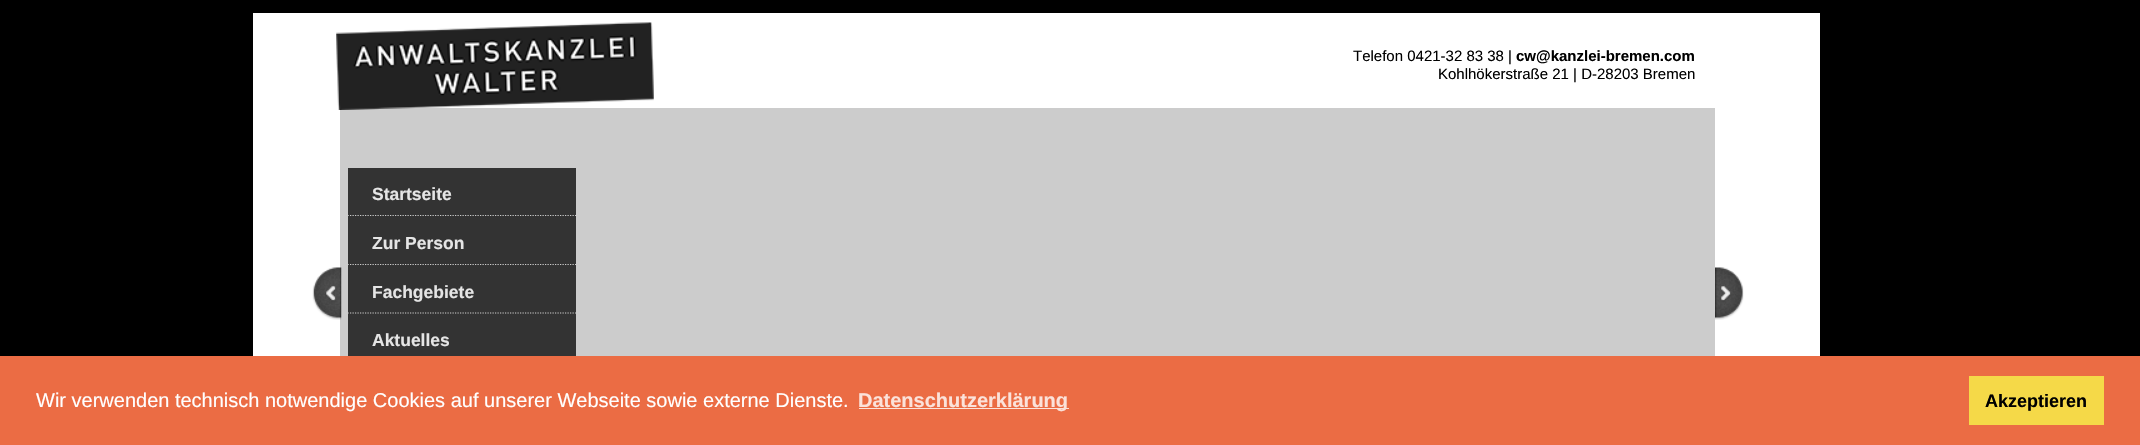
void draw(SkCanvas* canvas) {
  SkPaint paint;
  paint.setAntiAlias(true);
  auto face = [&](const char* family, int weight, float size, bool italic = false) {
    SkFontStyle style(weight, SkFontStyle::kNormal_Width,
      italic ? SkFontStyle::kItalic_Slant : SkFontStyle::kUpright_Slant);
    SkFont result(fontMgr->matchFamilyStyle(family, style), size);
    result.setSubpixel(true);
    return result;
  };
  auto paste = [&](const char* path, float x, float y, float w, float h) {
    auto image = SkImages::DeferredFromEncodedData(SkData::MakeFromFileName(path));
    canvas->drawImageRect(image, SkRect::MakeXYWH(x, y, w, h), SkSamplingOptions());
  };
  auto shape = [&](const char* data, bool evenOdd = false) {
    SkPath result = *SkParsePath::FromSVGString(data);
    if (evenOdd) result.setFillType(SkPathFillType::kEvenOdd);
    return result;
  };
  canvas->clear(0xff000000);
  paint.setColor(0xffffffff);
  canvas->drawRect(SkRect::MakeXYWH(253, 13, 1567, 343), paint);
  paint.setColor(0xffcccccc);
  canvas->drawRect(SkRect::MakeXYWH(340, 108, 1375, 248), paint);
  paste("img/1.png", 336, 22, 318, 88);
  paint.setColor(0xff666666);
  canvas->drawRect(SkRect::MakeXYWH(348, 216, 228, 98), paint);
  paint.setColor(0xff333333);
  canvas->drawRect(SkRect::MakeXYWH(348, 168, 228, 48), paint);
  paint.setStroke(true);
  paint.setStrokeWidth(1.2f);
  paint.setColor(0xffcccccc);
  paint.setPathEffect(SkDashPathEffect::Make({{1.25f, 1.25f}}, 0));
  canvas->drawPath(shape("M347.5 215.5H576"), paint);
  paint.setPathEffect(nullptr);
  paint.setStroke(false);
  paint.setColor(0x80000000);
  canvas->drawRect(SkRect::MakeXYWH(348, 216, 228, 49), paint);
  paint.setStroke(true);
  paint.setColor(0xffcccccc);
  paint.setPathEffect(SkDashPathEffect::Make({{1.25f, 1.25f}}, 0));
  canvas->drawPath(shape("M347.5 264.5H576"), paint);
  paint.setPathEffect(nullptr);
  paint.setStroke(false);
  paint.setColor(0x80000000);
  canvas->drawRect(SkRect::MakeXYWH(348, 265, 228, 49), paint);
  paint.setStroke(true);
  paint.setColor(0xffcccccc);
  paint.setPathEffect(SkDashPathEffect::Make({{1.25f, 1.25f}}, 0));
  canvas->drawPath(shape("M347.5 313H576"), paint);
  paint.setPathEffect(nullptr);
  paint.setStroke(false);
  paint.setColor(0xff333333);
  canvas->drawRect(SkRect::MakeXYWH(348, 314, 228, 42), paint);
  paste("img/2.png", 312, 267, 30, 53);
  paste("img/3.png", 1715, 267, 29, 53);
  {
    const struct { float x, y, w, h; SkColor color; } items[] = {
      {0, 356, 2140, 89, 0xffeb6c44},
      {859, 408, 210, 1, 0xfffbe2da},
      {1969, 376, 135, 49, 0xfff5d948},
    };
    for (auto [x, y, w, h, color] : items) {
      paint.setColor(color);
      canvas->drawRect(SkRect::MakeXYWH(x, y, w, h), paint);
    }
  }
  auto f0 = face("Liberation Sans", 400, 15);
  paint.setColor(0xff000000);
  canvas->drawString("Telefon 0421-32 83 38 |", 1353, 61, f0, paint);
  auto f1 = face("Liberation Sans", 700, 15);
  canvas->drawString("cw@kanzlei-bremen.com", 1516, 61, f1, paint);
  canvas->drawString("Kohlhökerstraße 21 | D-28203 Bremen", 1438, 79, f0, paint);
  auto f2 = face("Liberation Sans", 700, 17.5f);
  paint.setColor(0xffe5e5e5);
  {
    const struct { const char* s; float x, y; } items[] = {
      {"Startseite", 372, 200},
      {"Zur Person", 372, 249},
      {"Fachgebiete", 372, 298},
      {"Aktuelles", 372, 346},
    };
    for (auto [s, x, y] : items) {
      canvas->drawString(s, x, y, f2, paint);
    }
  }
  auto f3 = face("Liberation Sans", 400, 20);
  paint.setColor(0xffffffff);
  canvas->drawString("Wir verwenden technisch notwendige Cookies auf unserer Webseite sowie externe Dienste.", 36, 407, f3, paint);
  auto f4 = face("Liberation Sans", 700, 20);
  paint.setColor(0xfffbe2da);
  canvas->drawString("Datenschutzerklärung", 858, 407, f4, paint);
  auto f5 = face("Liberation Sans", 700, 18);
  paint.setColor(0xff000000);
  canvas->drawString("Akzeptieren", 1985, 407, f5, paint);
}
